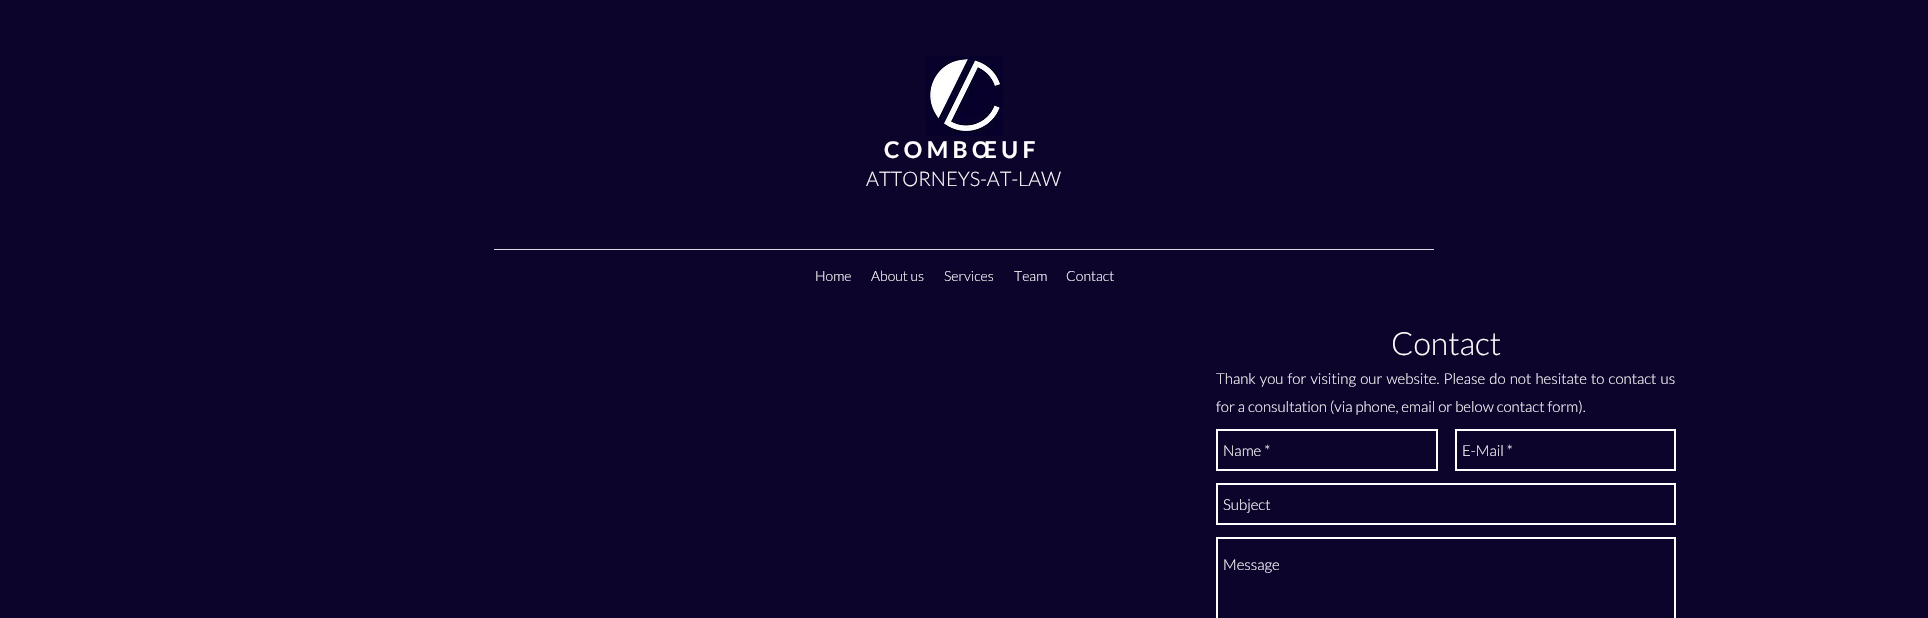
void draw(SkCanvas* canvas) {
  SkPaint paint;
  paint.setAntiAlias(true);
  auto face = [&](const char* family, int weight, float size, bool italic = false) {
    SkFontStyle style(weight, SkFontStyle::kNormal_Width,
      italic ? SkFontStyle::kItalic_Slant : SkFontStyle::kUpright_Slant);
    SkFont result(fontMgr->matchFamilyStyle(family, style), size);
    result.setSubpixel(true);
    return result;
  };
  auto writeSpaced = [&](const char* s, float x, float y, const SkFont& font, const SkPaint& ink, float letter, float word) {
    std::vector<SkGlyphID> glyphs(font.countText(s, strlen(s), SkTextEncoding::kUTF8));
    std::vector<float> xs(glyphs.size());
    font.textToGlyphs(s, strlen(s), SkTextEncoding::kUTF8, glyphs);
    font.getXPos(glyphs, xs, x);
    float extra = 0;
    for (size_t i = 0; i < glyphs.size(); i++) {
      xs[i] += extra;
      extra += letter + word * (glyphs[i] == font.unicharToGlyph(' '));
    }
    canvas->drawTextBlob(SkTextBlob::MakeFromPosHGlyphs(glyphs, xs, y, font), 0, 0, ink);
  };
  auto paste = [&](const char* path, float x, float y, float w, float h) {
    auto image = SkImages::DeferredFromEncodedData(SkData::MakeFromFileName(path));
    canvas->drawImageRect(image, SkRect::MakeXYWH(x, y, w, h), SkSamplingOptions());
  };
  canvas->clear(0xff0c042b);
  paste("img/1.png", 926, 56, 77, 80);
  paint.setColor(0xffdbd9df);
  canvas->drawRect(SkRect::MakeXYWH(494, 249, 940, 1), paint);
  paint.setStroke(true);
  paint.setStrokeWidth(2);
  paint.setColor(0xffffffff);
  canvas->drawRect(SkRect::MakeXYWH(1217, 430, 220, 40), paint);
  canvas->drawRect(SkRect::MakeXYWH(1456, 430, 219, 40), paint);
  canvas->drawRect(SkRect::MakeXYWH(1217, 484, 458, 40), paint);
  canvas->drawRect(SkRect::MakeXYWH(1217, 538, 458, 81), paint);
  auto f0 = face("Lato", 700, 23);
  paint.setStroke(false);
  canvas->drawString("C O M B Œ U F", 884, 158, f0, paint);
  auto f1 = face("Lato", 300, 20);
  canvas->drawString("ATTORNEYS-AT-LAW", 866, 186, f1, paint);
  auto f2 = face("Lato", 300, 14);
  {
    const struct { const char* s; float x, y; } items[] = {
      {"Home", 815, 281},
      {"About us", 871, 281},
      {"Services", 944, 281},
      {"Team", 1014, 281},
      {"Contact", 1066, 281},
    };
    for (auto [s, x, y] : items) {
      canvas->drawString(s, x, y, f2, paint);
    }
  }
  auto f3 = face("Lato", 300, 32);
  canvas->drawString("Contact", 1391, 355, f3, paint);
  auto f4 = face("Lato", 300, 15);
  writeSpaced("Thank you for visiting our website. Please do not hesitate to contact us", 1216, 384, f4, paint, 0, 1.25f);
  {
    const struct { const char* s; float x, y; } items[] = {
      {"for a consultation (via phone, email or below contact form).", 1216, 412},
      {"Name *", 1223, 456},
      {"E-Mail *", 1462, 456},
      {"Subject", 1223, 510},
      {"Message", 1223, 570},
    };
    for (auto [s, x, y] : items) {
      canvas->drawString(s, x, y, f4, paint);
    }
  }
}
